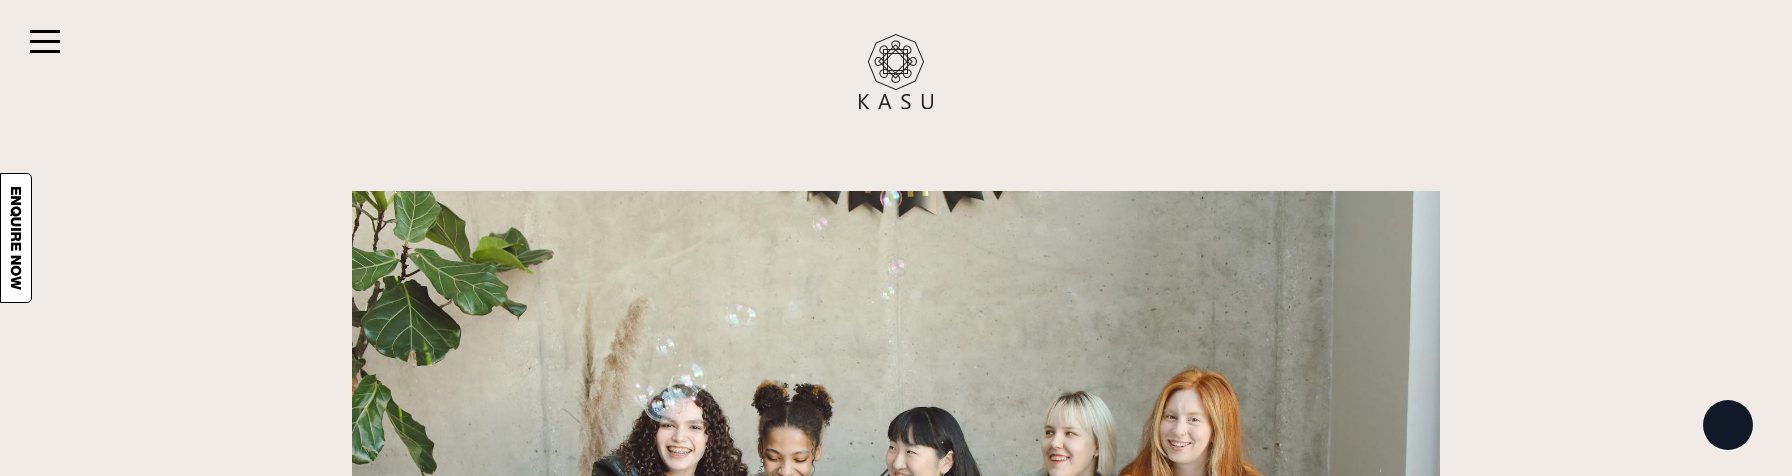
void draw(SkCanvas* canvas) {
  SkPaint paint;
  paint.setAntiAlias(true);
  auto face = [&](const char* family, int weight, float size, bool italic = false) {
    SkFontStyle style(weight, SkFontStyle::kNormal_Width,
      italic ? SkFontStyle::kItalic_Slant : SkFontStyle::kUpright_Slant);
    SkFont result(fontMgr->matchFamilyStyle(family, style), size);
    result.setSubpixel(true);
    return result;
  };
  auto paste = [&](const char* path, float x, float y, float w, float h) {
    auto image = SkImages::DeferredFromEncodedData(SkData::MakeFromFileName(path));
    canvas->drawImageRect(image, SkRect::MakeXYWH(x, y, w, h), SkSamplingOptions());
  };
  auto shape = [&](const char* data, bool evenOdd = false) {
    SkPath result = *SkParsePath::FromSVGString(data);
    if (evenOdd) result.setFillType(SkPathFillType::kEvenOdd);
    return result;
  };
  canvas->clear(0xfff0ebe7);
  {
    const struct { float x, y, w, h; SkColor color; } items[] = {
      {30, 30, 30, 3, 0xff000000},
      {30, 40, 30, 3, 0xff000000},
      {30, 50, 30, 3, 0xff000000},
    };
    for (auto [x, y, w, h, color] : items) {
      paint.setColor(color);
      canvas->drawRect(SkRect::MakeXYWH(x, y, w, h), paint);
    }
  }
  paste("img/1.png", 859, 34, 74, 75);
  paint.setColor(0xffffffff);
  canvas->drawPath(shape("M.5 173.5H27C29.5 173.5 31.5 175.5 31.5 178V298C31.5 300.5 29.5 302.5 27 302.5H.5Z"), paint);
  paint.setStroke(true);
  paint.setStrokeWidth(1);
  paint.setColor(0xff000000);
  canvas->drawPath(shape("M.5 173.5H27C29.5 173.5 31.5 175.5 31.5 178V298C31.5 300.5 29.5 302.5 27 302.5H.5Z"), paint);
  paste("img/2.png", 352, 191, 1088, 285);
  paint.setColor(0xffc1c1c1);
  canvas->drawCircle(1728, 425, 24.5f, paint);
  paint.setStroke(false);
  paint.setColor(0xffffffff);
  canvas->drawRoundRect(SkRect::MakeXYWH(1703, 400, 50, 51), 25, 25, paint);
  paint.setColor(0xff111827);
  canvas->drawCircle(1728, 425, 25, paint);
  auto f0 = face("Helvetica Neue", 700, 14);
  paint.setColor(0xff000000);
  canvas->save();
  canvas->rotate(90, 11, 186);
  canvas->drawString("ENQUIRE", 11, 186, f0, paint);
  canvas->restore();
  canvas->save();
  canvas->rotate(90, 11, 255);
  canvas->drawString("NOW", 11, 255, f0, paint);
  canvas->restore();
}
